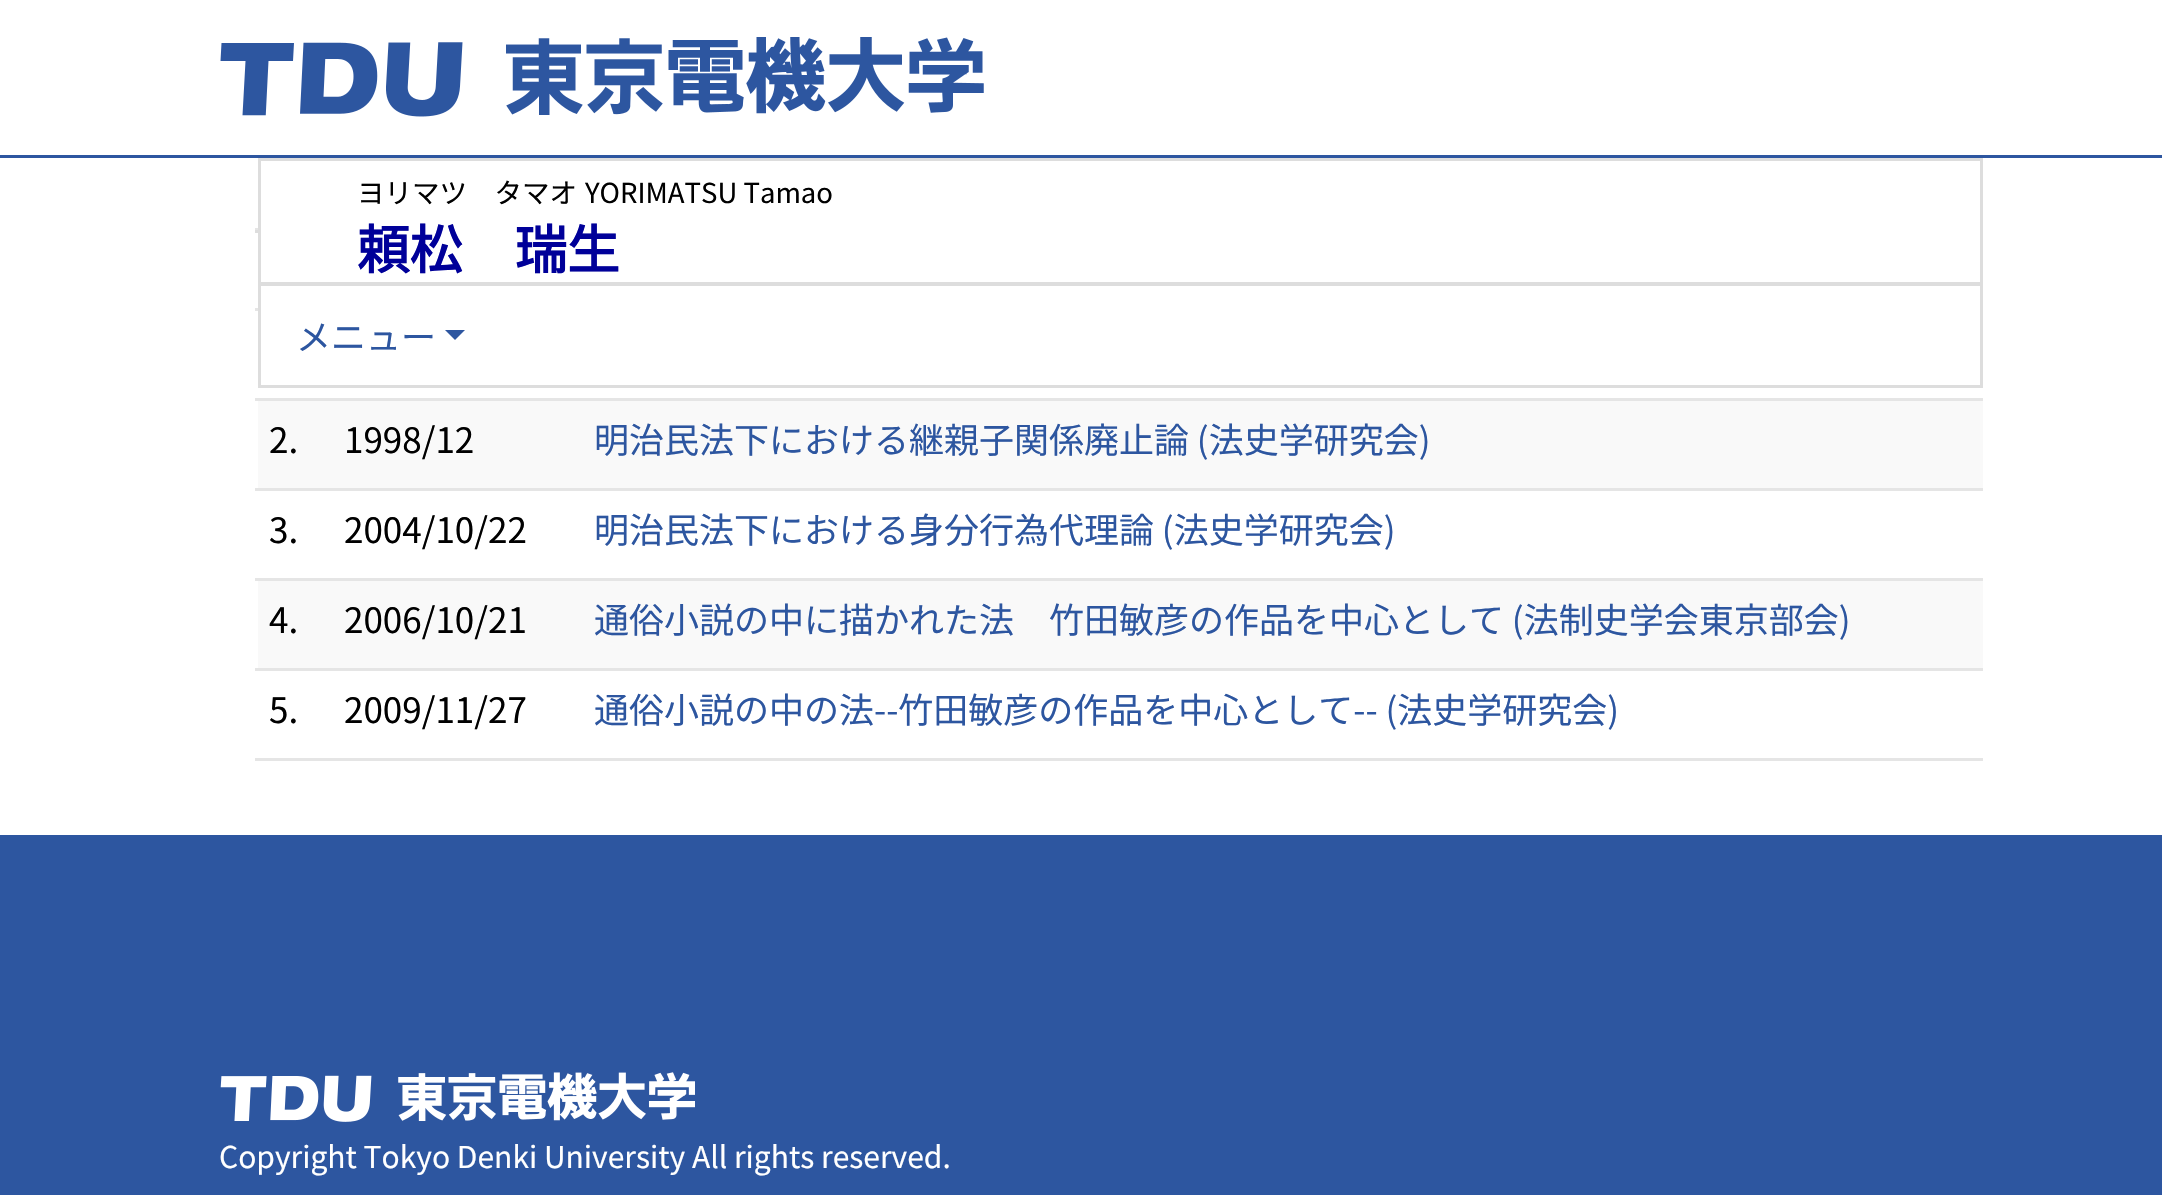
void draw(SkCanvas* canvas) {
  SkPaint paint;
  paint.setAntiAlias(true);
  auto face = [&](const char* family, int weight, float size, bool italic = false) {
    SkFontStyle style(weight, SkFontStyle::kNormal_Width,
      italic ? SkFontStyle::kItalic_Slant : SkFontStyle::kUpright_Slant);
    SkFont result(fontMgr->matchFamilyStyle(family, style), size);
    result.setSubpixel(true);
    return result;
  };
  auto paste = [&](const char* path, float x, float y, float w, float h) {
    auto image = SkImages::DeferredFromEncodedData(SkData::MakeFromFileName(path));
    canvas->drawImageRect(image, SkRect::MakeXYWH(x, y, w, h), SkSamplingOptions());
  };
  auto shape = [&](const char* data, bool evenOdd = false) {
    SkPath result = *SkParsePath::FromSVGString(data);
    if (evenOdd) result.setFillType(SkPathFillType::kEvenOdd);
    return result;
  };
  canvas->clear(0xffffffff);
  paint.setColor(0xff2d56a0);
  canvas->drawRect(SkRect::MakeXYWH(0, 155, 2162, 3), paint);
  paste("img/1.png", 220, 37, 764, 80);
  paint.setStroke(true);
  paint.setStrokeWidth(3);
  paint.setColor(0xffdddddd);
  canvas->drawRect(SkRect::MakeXYWH(259.5f, 159.5f, 1722, 124), paint);
  canvas->drawRect(SkRect::MakeXYWH(259.5f, 284.5f, 1722, 102), paint);
  paint.setStroke(false);
  paint.setColor(0xff2d56a0);
  canvas->drawPath(shape("M445 330H465L455 340Z"), paint);
  {
    const struct { float x, y, w, h; SkColor color; } items[] = {
      {255, 228, 3, 2, 0xffe5e5e5},
      {255, 230, 3, 3, 0xffdddddd},
      {255, 308, 3, 3, 0xffe5e5e5},
      {255, 398, 1728, 3, 0xffe5e5e5},
      {258, 401, 1725, 87, 0xfff9f9f9},
      {255, 488, 1728, 3, 0xffe5e5e5},
      {255, 578, 1728, 3, 0xffe5e5e5},
      {258, 581, 1725, 87, 0xfff9f9f9},
      {255, 668, 1728, 3, 0xffe5e5e5},
      {255, 758, 1728, 3, 0xffe5e5e5},
      {0, 835, 2162, 360, 0xff2d56a0},
    };
    for (auto [x, y, w, h, color] : items) {
      paint.setColor(color);
      canvas->drawRect(SkRect::MakeXYWH(x, y, w, h), paint);
    }
  }
  paste("img/2.png", 220, 1072, 475, 50);
  auto f0 = face("Noto Sans JP", 100, 27.5f);
  paint.setColor(0xff000000);
  canvas->drawString("ヨリマツ　タマオ", 357, 203, f0, paint);
  canvas->drawString("YORIMATSU Tamao", 585, 203, f0, paint);
  auto f1 = face("Noto Sans JP", 700, 52.5f);
  paint.setColor(0xff000099);
  canvas->drawString("頼松　瑞生", 357, 269, f1, paint);
  auto f2 = face("Noto Sans JP", 100, 35);
  paint.setColor(0xff2d56a0);
  canvas->drawString("メニュー", 296, 350, f2, paint);
  paint.setColor(0xff000000);
  canvas->drawString("2.", 269, 453, f2, paint);
  canvas->drawString("1998/12", 344, 453, f2, paint);
  paint.setColor(0xff2d56a0);
  canvas->drawString("明治民法下における継親子関係廃止論 (法史学研究会)", 594, 453, f2, paint);
  paint.setColor(0xff000000);
  canvas->drawString("3.", 269, 543, f2, paint);
  canvas->drawString("2004/10/22", 344, 543, f2, paint);
  paint.setColor(0xff2d56a0);
  canvas->drawString("明治民法下における身分行為代理論 (法史学研究会)", 594, 543, f2, paint);
  paint.setColor(0xff000000);
  canvas->drawString("4.", 269, 633, f2, paint);
  canvas->drawString("2006/10/21", 344, 633, f2, paint);
  paint.setColor(0xff2d56a0);
  canvas->drawString("通俗小説の中に描かれた法　竹田敏彦の作品を中心として (法制史学会東京部会)", 594, 633, f2, paint);
  paint.setColor(0xff000000);
  canvas->drawString("5.", 269, 723, f2, paint);
  canvas->drawString("2009/11/27", 344, 723, f2, paint);
  paint.setColor(0xff2d56a0);
  canvas->drawString("通俗小説の中の法--竹田敏彦の作品を中心として-- (法史学研究会)", 594, 723, f2, paint);
  auto f3 = face("Noto Sans JP", 100, 30);
  paint.setColor(0xffffffff);
  canvas->drawString("Copyright Tokyo Denki University All rights reserved.", 219, 1168, f3, paint);
}
